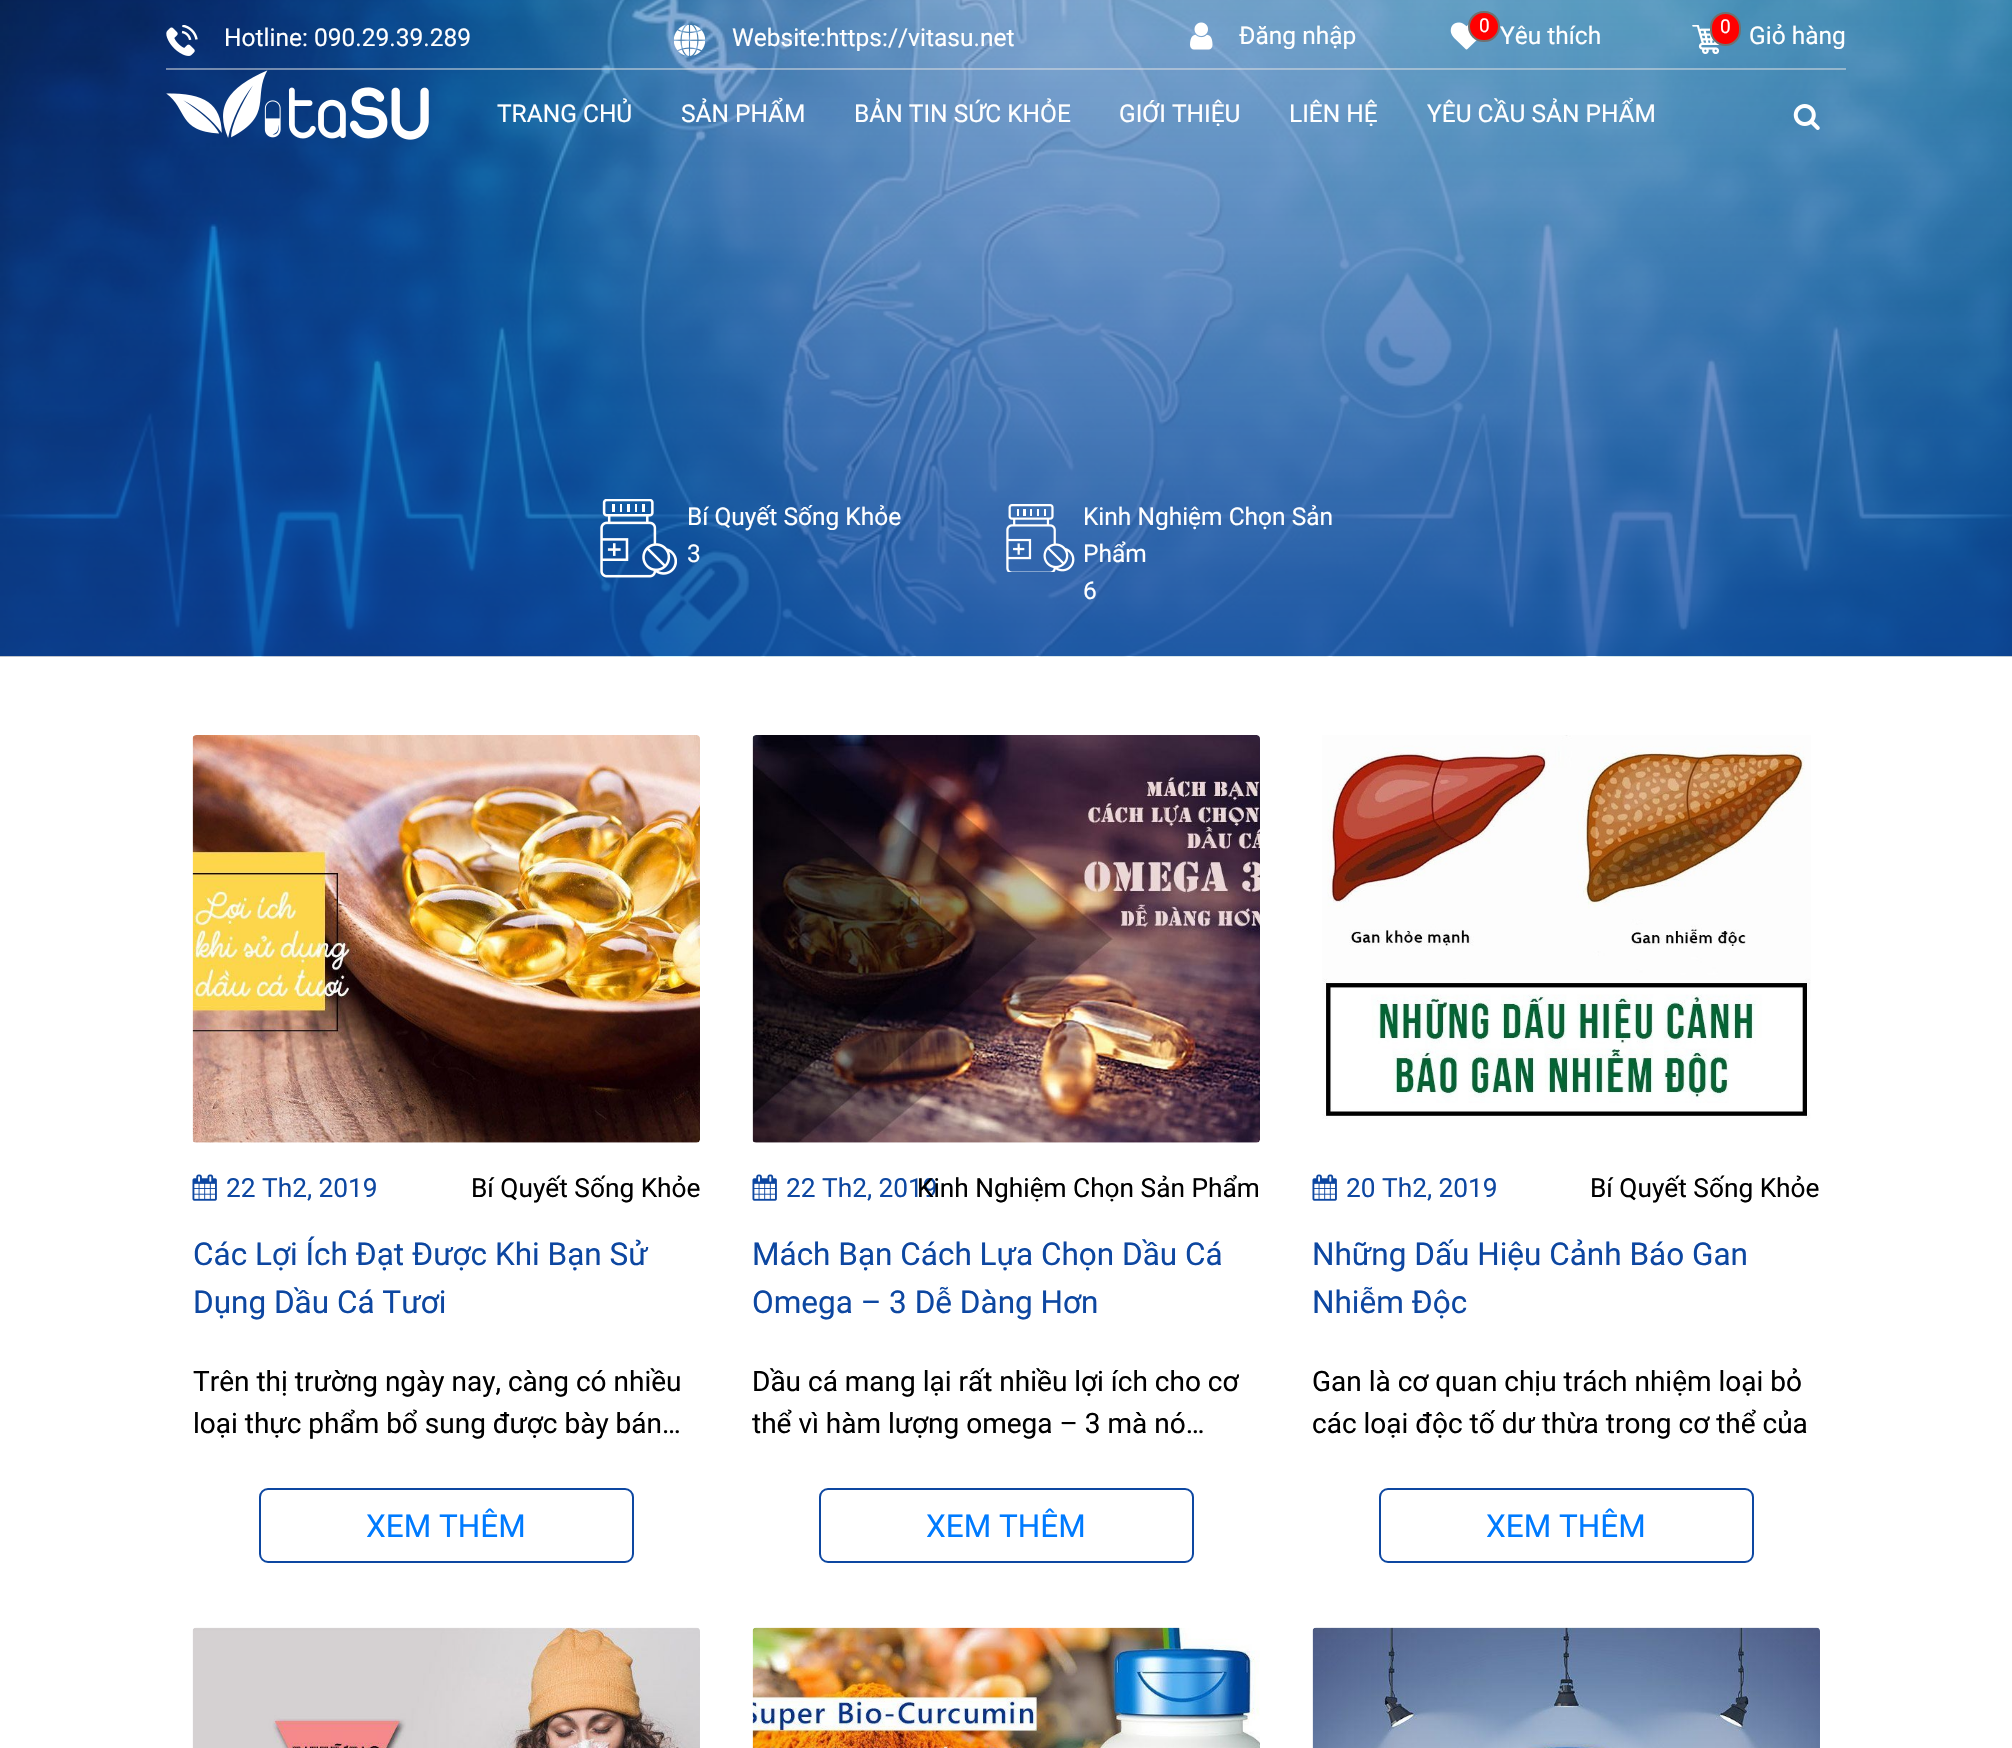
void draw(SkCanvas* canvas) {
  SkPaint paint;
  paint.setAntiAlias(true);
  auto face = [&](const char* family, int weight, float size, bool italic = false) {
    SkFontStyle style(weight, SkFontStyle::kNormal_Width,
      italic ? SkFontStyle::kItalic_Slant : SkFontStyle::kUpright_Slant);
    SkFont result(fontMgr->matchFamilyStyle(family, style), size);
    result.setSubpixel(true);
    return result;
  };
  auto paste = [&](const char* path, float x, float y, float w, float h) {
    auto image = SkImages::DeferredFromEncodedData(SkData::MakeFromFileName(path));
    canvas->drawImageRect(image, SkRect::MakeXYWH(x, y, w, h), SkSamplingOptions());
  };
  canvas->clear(0xffffffff);
  paste("img/8.png", 0, 0, 2012, 657);
  paint.setColor(0x80e1e1e1);
  canvas->drawRect(SkRect::MakeXYWH(166, 68, 1680, 2), paint);
  paste("img/1.png", 166, 25, 32, 31);
  paste("img/2.png", 674, 25, 31, 31);
  paste("img/3.png", 1190, 22, 23, 28);
  paste("img/4.png", 1450, 22, 27, 28);
  paint.setColor(0xffff0000);
  canvas->drawRoundRect(SkRect::MakeXYWH(1469, 12, 30, 29), 14.5f, 14.5f, paint);
  paint.setStroke(true);
  paint.setStrokeWidth(2);
  paint.setColor(0xff707070);
  canvas->drawRoundRect(SkRect::MakeXYWH(1469, 12, 30, 29), 14.5f, 14.5f, paint);
  paste("img/5.png", 1692, 25, 28, 29);
  paint.setStroke(false);
  paint.setColor(0xffff0000);
  canvas->drawRoundRect(SkRect::MakeXYWH(1711, 13, 29, 32), 14.5f, 14.5f, paint);
  paint.setStroke(true);
  paint.setColor(0xff707070);
  canvas->drawRoundRect(SkRect::MakeXYWH(1711, 13, 29, 32), 14.5f, 14.5f, paint);
  paste("img/6.png", 166, 70, 263, 70);
  paste("img/7.png", 1793, 104, 27, 26);
  paste("img/9.png", 600, 499, 77, 79);
  paste("img/10.png", 1006, 504, 69, 68);
  paste("img/11.png", 192, 735, 508, 408);
  paste("img/12.png", 192, 1174, 25, 27);
  paint.setColor(0xff0d47a1);
  canvas->drawRoundRect(SkRect::MakeXYWH(260, 1489, 373, 73), 8, 8, paint);
  paste("img/13.png", 752, 735, 508, 408);
  paste("img/12.png", 752, 1174, 25, 27);
  canvas->drawRoundRect(SkRect::MakeXYWH(820, 1489, 373, 73), 8, 8, paint);
  paste("img/14.png", 1322, 735, 489, 384);
  paste("img/12.png", 1312, 1174, 25, 27);
  canvas->drawRoundRect(SkRect::MakeXYWH(1380, 1489, 373, 73), 8, 8, paint);
  paste("img/15.png", 192, 1627, 508, 121);
  paste("img/16.png", 752, 1627, 508, 121);
  paste("img/17.png", 1312, 1627, 508, 121);
  auto f0 = face("Roboto", 400, 24.5f);
  paint.setStroke(false);
  paint.setColor(0xffffffff);
  {
    const struct { const char* s; float x, y; } items[] = {
      {"Hotline: 090.29.39.289", 224, 46},
      {"Website:https://vitasu.net", 732, 46},
      {"Đăng nhập", 1239, 44},
    };
    for (auto [s, x, y] : items) {
      canvas->drawString(s, x, y, f0, paint);
    }
  }
  auto f1 = face("Roboto", 400, 19);
  canvas->drawString("0", 1479, 32, f1, paint);
  canvas->drawString("Yêu thích", 1500, 44, f0, paint);
  canvas->drawString("0", 1720, 33, f1, paint);
  {
    const struct { const char* s; float x, y; } items[] = {
      {"Giỏ hàng", 1749, 44},
      {"TRANG CHỦ", 497, 122},
      {"SẢN PHẨM", 681, 122},
      {"BẢN TIN SỨC KHỎE", 854, 122},
      {"GIỚI THIỆU", 1119, 122},
      {"LIÊN HỆ", 1289, 122},
      {"YÊU CẦU SẢN PHẨM", 1427, 122},
      {"Bí Quyết Sống Khỏe", 687, 525},
      {"3", 687, 562},
      {"Kinh Nghiệm Chọn Sản", 1083, 525},
      {"Phẩm", 1083, 562},
      {"6", 1083, 599},
    };
    for (auto [s, x, y] : items) {
      canvas->drawString(s, x, y, f0, paint);
    }
  }
  auto f2 = face("Roboto", 400, 26.25f);
  paint.setColor(0xff0d47a1);
  canvas->drawString("22 Th2, 2019", 226, 1197, f2, paint);
  paint.setColor(0xff000000);
  canvas->drawString("Bí Quyết Sống Khỏe", 471, 1197, f2, paint);
  auto f3 = face("Roboto", 400, 31.5f);
  paint.setColor(0xff0d47a1);
  canvas->drawString("Các Lợi Ích Đạt Được Khi Bạn Sử", 193, 1265, f3, paint);
  canvas->drawString("Dụng Dầu Cá Tươi", 193, 1313, f3, paint);
  auto f4 = face("Roboto", 400, 28);
  paint.setColor(0xff000000);
  canvas->drawString("Trên thị trường ngày nay, càng có nhiều", 193, 1391, f4, paint);
  canvas->drawString("loại thực phẩm bổ sung được bày bán…", 193, 1433, f4, paint);
  paint.setColor(0xff007bff);
  canvas->drawString("XEM THÊM", 366, 1537, f3, paint);
  paint.setColor(0xff0d47a1);
  canvas->drawString("22 Th2, 2019", 786, 1197, f2, paint);
  paint.setColor(0xff000000);
  canvas->drawString("Kinh Nghiệm Chọn Sản Phẩm", 917, 1197, f2, paint);
  paint.setColor(0xff0d47a1);
  canvas->drawString("Mách Bạn Cách Lựa Chọn Dầu Cá", 752, 1265, f3, paint);
  canvas->drawString("Omega – 3 Dễ Dàng Hơn", 752, 1313, f3, paint);
  paint.setColor(0xff000000);
  canvas->drawString("Dầu cá mang lại rất nhiều lợi ích cho cơ", 752, 1391, f4, paint);
  canvas->drawString("thể vì hàm lượng omega – 3 mà nó…", 752, 1433, f4, paint);
  paint.setColor(0xff007bff);
  canvas->drawString("XEM THÊM", 926, 1537, f3, paint);
  paint.setColor(0xff0d47a1);
  canvas->drawString("20 Th2, 2019", 1346, 1197, f2, paint);
  paint.setColor(0xff000000);
  canvas->drawString("Bí Quyết Sống Khỏe", 1590, 1197, f2, paint);
  paint.setColor(0xff0d47a1);
  canvas->drawString("Những Dấu Hiệu Cảnh Báo Gan", 1312, 1265, f3, paint);
  canvas->drawString("Nhiễm Độc", 1312, 1313, f3, paint);
  paint.setColor(0xff000000);
  canvas->drawString("Gan là cơ quan chịu trách nhiệm loại bỏ", 1312, 1391, f4, paint);
  canvas->drawString("các loại độc tố dư thừa trong cơ thể của", 1312, 1433, f4, paint);
  paint.setColor(0xff007bff);
  canvas->drawString("XEM THÊM", 1486, 1537, f3, paint);
}
